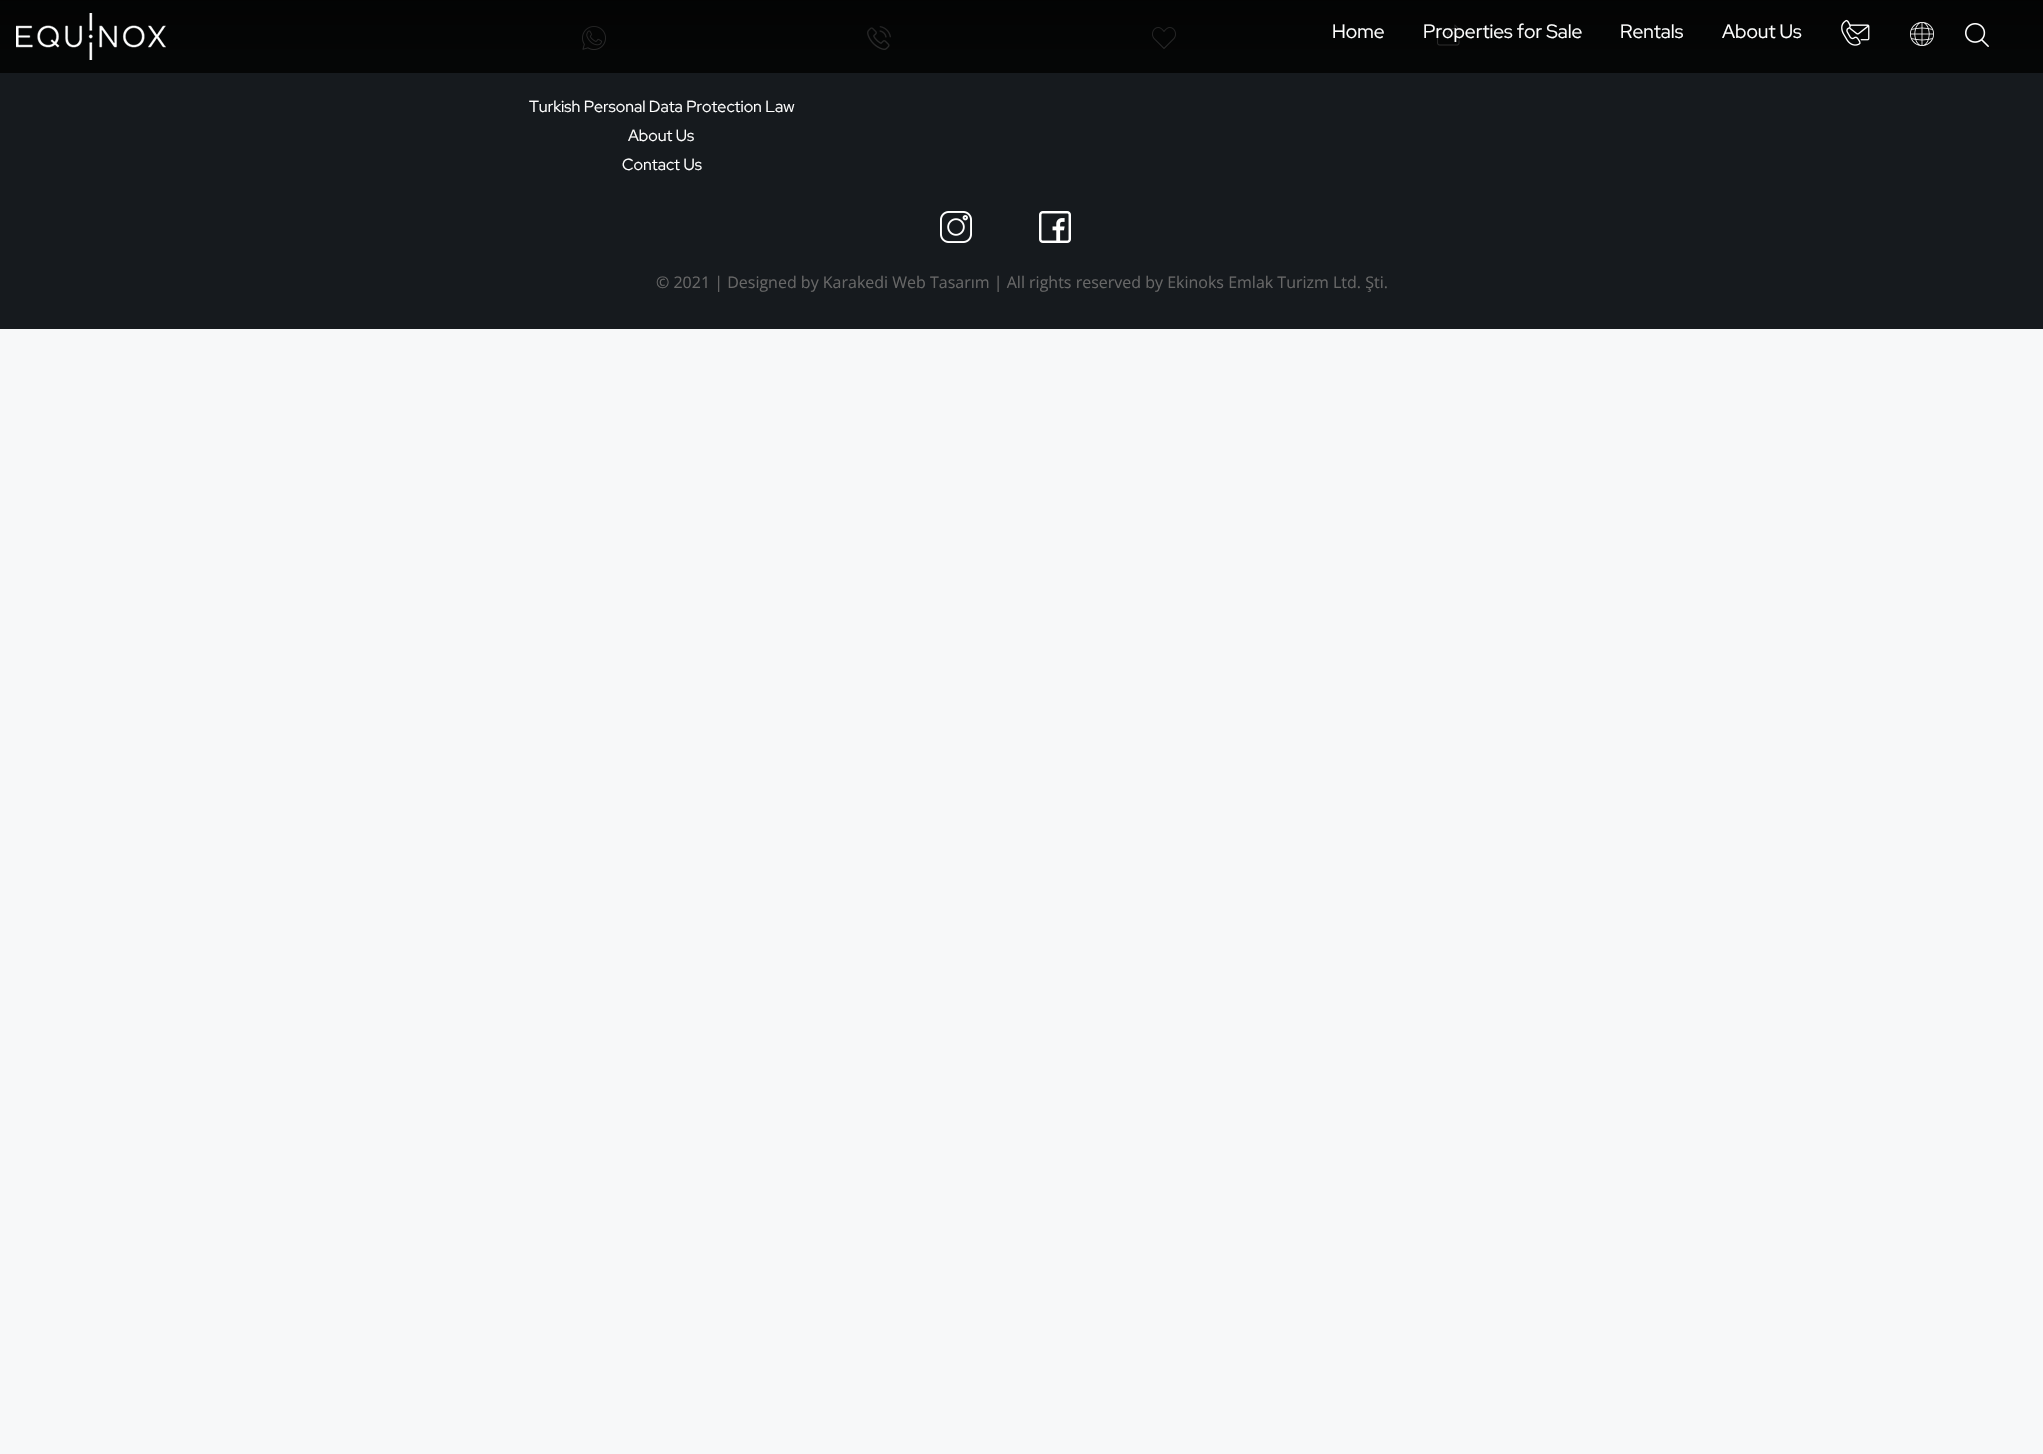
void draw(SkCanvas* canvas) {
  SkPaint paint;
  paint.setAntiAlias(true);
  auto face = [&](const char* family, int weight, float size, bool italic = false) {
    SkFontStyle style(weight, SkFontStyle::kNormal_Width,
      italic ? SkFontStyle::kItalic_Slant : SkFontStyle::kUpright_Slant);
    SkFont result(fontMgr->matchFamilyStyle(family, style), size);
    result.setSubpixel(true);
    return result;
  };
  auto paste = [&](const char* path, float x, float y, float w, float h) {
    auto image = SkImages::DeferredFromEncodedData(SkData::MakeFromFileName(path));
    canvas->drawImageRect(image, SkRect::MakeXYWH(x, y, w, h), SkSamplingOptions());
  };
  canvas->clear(0xfff7f8f9);
  paint.setColor(0xff161a1e);
  canvas->drawRect(SkRect::MakeXYWH(0, 0, 2043, 329), paint);
  paste("img/5.png", 582, 26, 24, 24);
  paste("img/6.png", 867, 26, 24, 24);
  paste("img/7.png", 1152, 27, 24, 22);
  paste("img/8.png", 1437, 24, 24, 22);
  paint.setColor(0xcc000000);
  canvas->drawRect(SkRect::MakeXYWH(0, 0, 2043, 73), paint);
  {
    const SkColor colors[] = {0x80000000, 0x00000000};
    const float stops[] = {0, 1};
    const SkPoint ends[] = {{1022, 0}, {1022, 73}};
    paint.setShader(SkGradientShader::MakeLinear(ends, colors, stops, 2, SkTileMode::kClamp));
    paint.setAlpha(255);
  }
  canvas->drawRect(SkRect::MakeXYWH(0, 0, 2043, 50), paint);
  paste("img/1.png", 16, 13, 150, 47);
  paste("img/2.png", 1841, 19, 29, 27);
  paste("img/3.png", 1910, 22, 24, 24);
  paste("img/4.png", 1965, 23, 24, 24);
  paste("img/9.png", 940, 211, 32, 32);
  paste("img/10.png", 1039, 211, 32, 32);
  auto f0 = face("Red Hat Display", 400, 19.25f);
  paint.setShader(nullptr);
  paint.setColor(0xffffffff);
  {
    const struct { const char* s; float x, y; } items[] = {
      {"Home", 1332, 38},
      {"Properties for Sale", 1423, 38},
      {"Rentals", 1620, 38},
      {"About Us", 1722, 38},
    };
    for (auto [s, x, y] : items) {
      canvas->drawString(s, x, y, f0, paint);
    }
  }
  auto f1 = face("Red Hat Display", 400, 16);
  {
    const struct { const char* s; float x, y; } items[] = {
      {"Turkish Personal Data Protection Law", 529, 112},
      {"About Us", 628, 141},
      {"Contact Us", 622, 170},
    };
    for (auto [s, x, y] : items) {
      canvas->drawString(s, x, y, f1, paint);
    }
  }
  auto f2 = face("Open Sans", 400, 16);
  paint.setColor(0xff676767);
  canvas->drawString("© 2021 | Designed by Karakedi Web Tasarım | All rights reserved by Ekinoks Emlak Turizm Ltd. Şti.", 656, 288, f2, paint);
}
